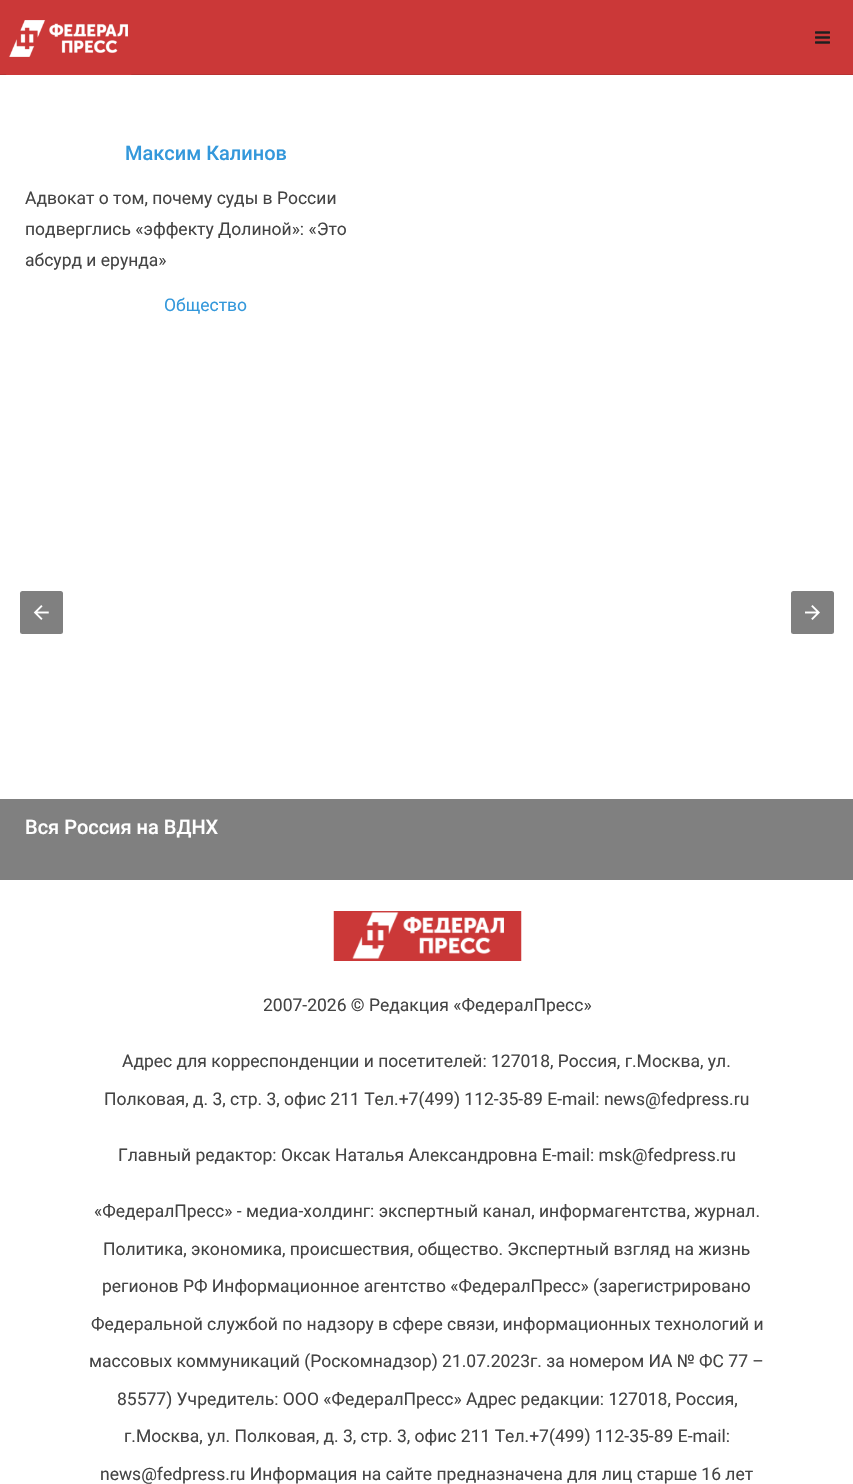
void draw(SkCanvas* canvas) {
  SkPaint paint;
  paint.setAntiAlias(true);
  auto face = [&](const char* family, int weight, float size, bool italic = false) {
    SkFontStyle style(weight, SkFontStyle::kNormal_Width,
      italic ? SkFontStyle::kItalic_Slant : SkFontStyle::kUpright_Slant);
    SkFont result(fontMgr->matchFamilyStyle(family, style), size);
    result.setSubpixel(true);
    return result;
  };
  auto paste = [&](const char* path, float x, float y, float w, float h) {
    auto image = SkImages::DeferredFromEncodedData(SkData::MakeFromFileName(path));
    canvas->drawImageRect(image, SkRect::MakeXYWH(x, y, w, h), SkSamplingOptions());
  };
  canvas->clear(0xffffffff);
  paint.setColor(0xffcb3838);
  canvas->drawRect(SkRect::MakeXYWH(0, 0, 853, 74), paint);
  paint.setColor(0xffb73232);
  canvas->drawRect(SkRect::MakeXYWH(0, 74, 853, 1), paint);
  paste("img/1.png", 6, 20, 126, 55);
  paste("img/2.png", 815, 31, 15, 13);
  paint.setColor(0xff808080);
  canvas->drawRoundRect(SkRect::MakeXYWH(20, 591, 43, 43), 2.5f, 2.5f, paint);
  paste("img/3.png", 33, 605, 16, 15);
  canvas->drawRoundRect(SkRect::MakeXYWH(791, 591, 43, 43), 2.5f, 2.5f, paint);
  paste("img/4.png", 805, 605, 15, 15);
  canvas->drawRect(SkRect::MakeXYWH(0, 799, 853, 81), paint);
  paste("img/5.png", 333, 911, 189, 50);
  auto f0 = face("Roboto", 500, 20);
  paint.setColor(0xff3498db);
  canvas->drawString("Максим Калинов", 125, 160, f0, paint);
  auto f1 = face("Roboto", 400, 17.5f);
  paint.setColor(0xff444444);
  {
    const struct { const char* s; float x, y; } items[] = {
      {"Адвокат о том, почему суды в России", 25, 204},
      {"подверглись «эффекту Долиной»: «Это", 25, 235},
      {"абсурд и ерунда»", 25, 266},
    };
    for (auto [s, x, y] : items) {
      canvas->drawString(s, x, y, f1, paint);
    }
  }
  paint.setColor(0xff3498db);
  canvas->drawString("Общество", 164, 311, f1, paint);
  paint.setColor(0xffffffff);
  canvas->drawString("Вся Россия на ВДНХ", 25, 834, f0, paint);
  paint.setColor(0xff444444);
  {
    const struct { const char* s; float x, y; } items[] = {
      {"2007-2026 © Редакция «ФедералПресс»", 263, 1011},
      {"Адрес для корреспонденции и посетителей: 127018, Россия, г.Москва, ул.", 122, 1067},
      {"Полковая, д. 3, стр. 3, офис 211 Тел.+7(499) 112-35-89 E-mail: news@fedpress.ru", 104, 1105},
      {"Главный редактор: Оксак Наталья Александровна E-mail: msk@fedpress.ru", 118, 1161},
      {"«ФедералПресс» - медиа-холдинг: экспертный канал, информагентства, журнал.", 94, 1217},
      {"Политика, экономика, происшествия, общество. Экспертный взгляд на жизнь", 103, 1255},
      {"регионов РФ Информационное агентство «ФедералПресс» (зарегистрировано", 102, 1292},
      {"Федеральной службой по надзору в сфере связи, информационных технологий и", 91, 1330},
      {"массовых коммуникаций (Роскомнадзор) 21.07.2023г. за номером ИА № ФС 77 –", 89, 1367},
      {"85577) Учредитель: ООО «ФедералПресс» Адрес редакции: 127018, Россия,", 117, 1405},
      {"г.Москва, ул. Полковая, д. 3, стр. 3, офис 211 Тел.+7(499) 112-35-89 E-mail:", 124, 1442},
      {"news@fedpress.ru Информация на сайте предназначена для лиц старше 16 лет", 100, 1480},
    };
    for (auto [s, x, y] : items) {
      canvas->drawString(s, x, y, f1, paint);
    }
  }
}
